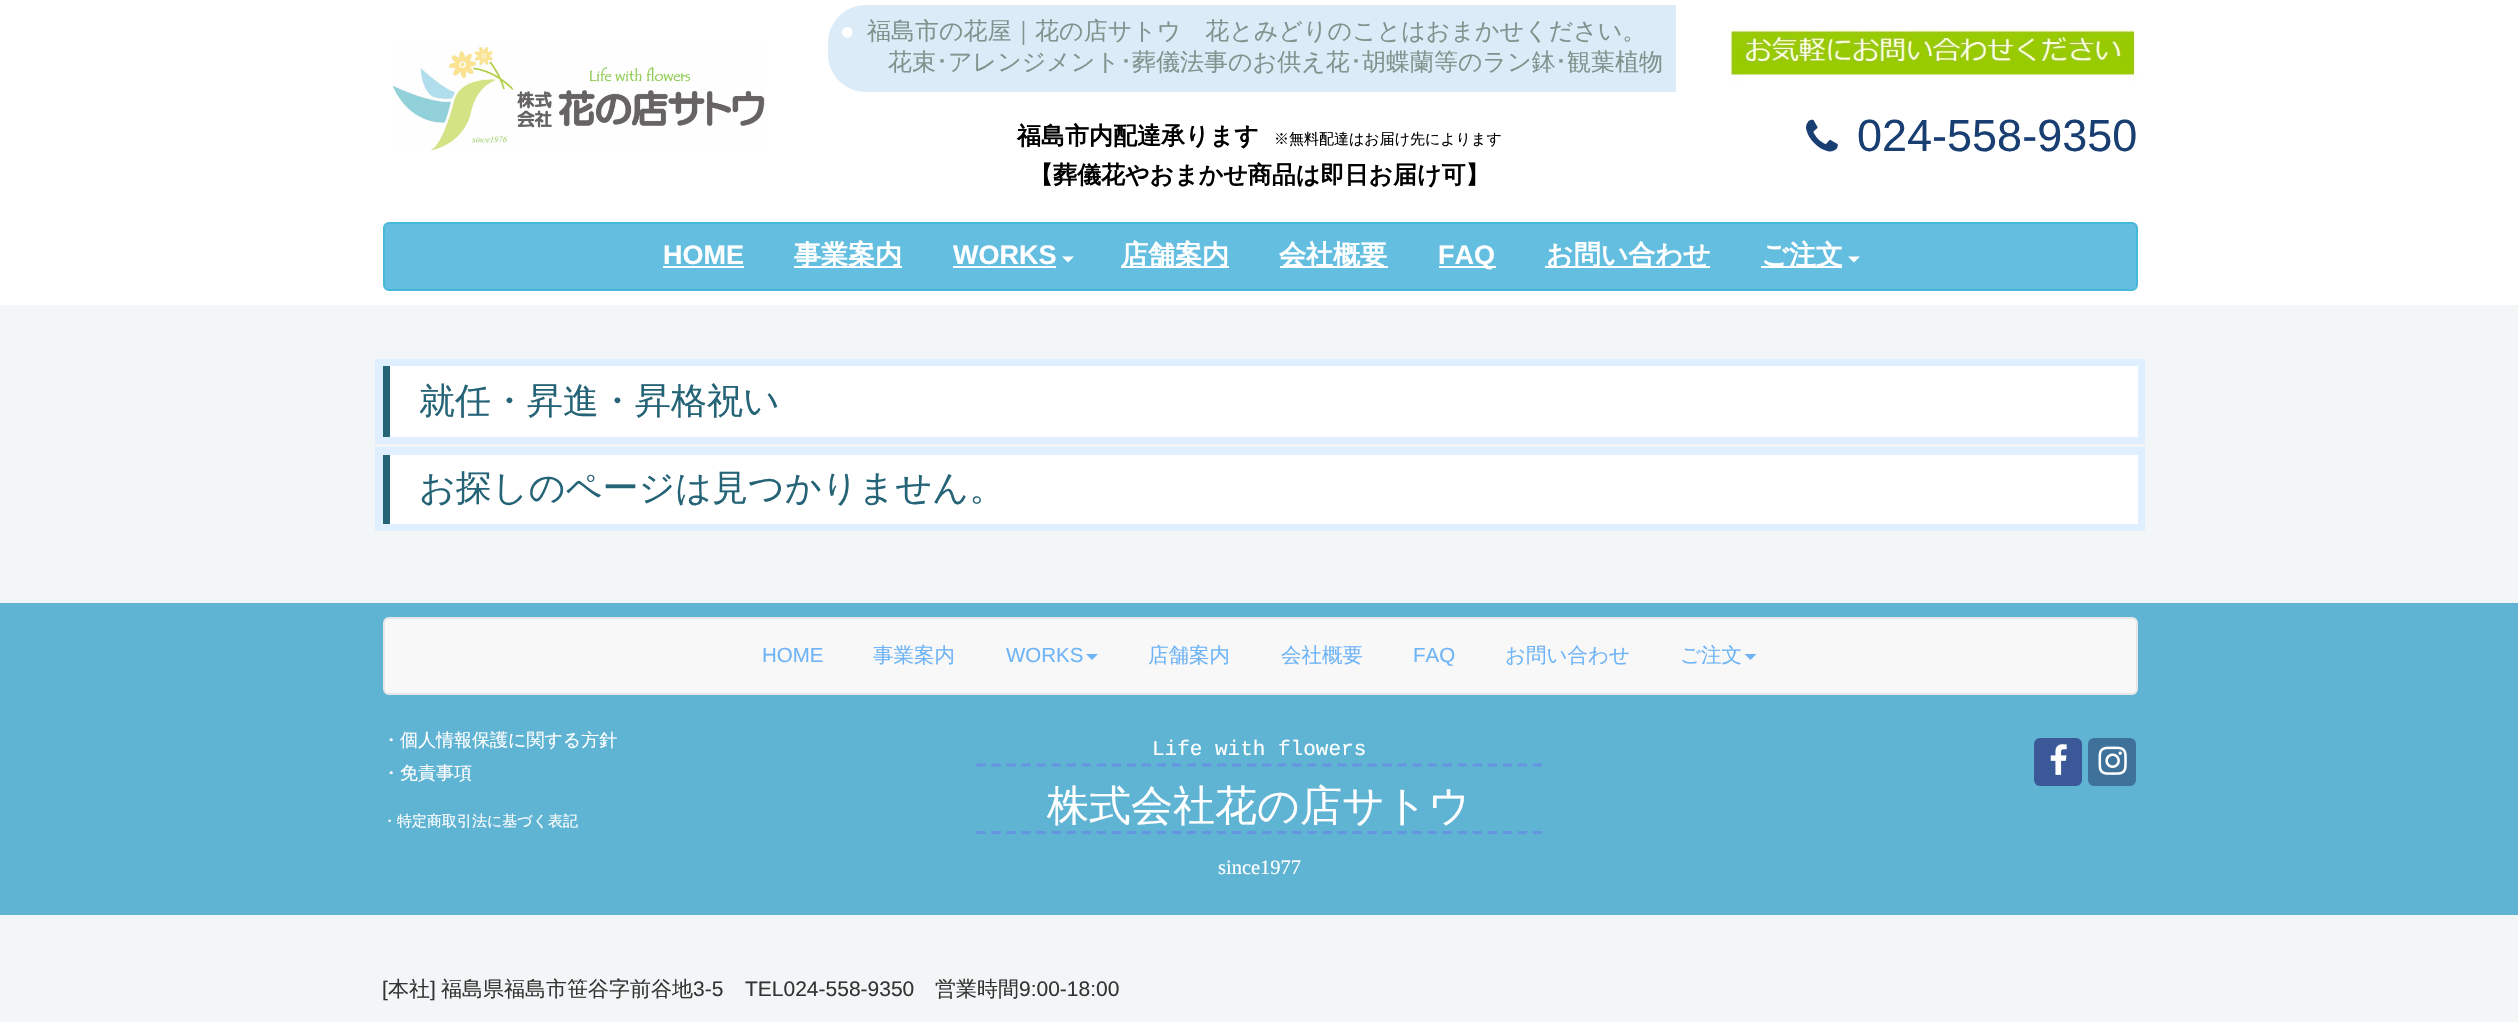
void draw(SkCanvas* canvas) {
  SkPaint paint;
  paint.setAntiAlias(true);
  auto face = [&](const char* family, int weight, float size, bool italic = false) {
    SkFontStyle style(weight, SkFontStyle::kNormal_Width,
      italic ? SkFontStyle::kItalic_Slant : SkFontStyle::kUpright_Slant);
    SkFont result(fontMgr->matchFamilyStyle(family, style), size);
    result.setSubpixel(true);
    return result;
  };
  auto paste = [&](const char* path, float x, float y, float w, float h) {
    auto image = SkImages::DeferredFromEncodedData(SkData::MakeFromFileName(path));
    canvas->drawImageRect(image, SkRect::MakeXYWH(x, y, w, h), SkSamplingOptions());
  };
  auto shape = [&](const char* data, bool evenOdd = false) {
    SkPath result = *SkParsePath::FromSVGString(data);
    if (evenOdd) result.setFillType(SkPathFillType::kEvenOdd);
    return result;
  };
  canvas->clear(0xfff3f6f7);
  paint.setColor(0xffffffff);
  canvas->drawRect(SkRect::MakeXYWH(0, 0, 2518, 305), paint);
  paste("img/1.png", 392, 44, 373, 107);
  paint.setColor(0xffdbebf8);
  canvas->drawPath(shape("M866 5H1676V92H866C845 92 828 75 828 54V43C828 22 845 5 866 5Z"), paint);
  paste("img/2.png", 1728, 28, 410, 56);
  paste("img/3.png", 1806, 119, 32, 33);
  paint.setColor(0xff64bee0);
  canvas->drawRoundRect(SkRect::MakeXYWH(384, 223, 1753, 67), 5, 5, paint);
  paint.setStroke(true);
  paint.setStrokeWidth(2);
  paint.setColor(0xff46b8da);
  canvas->drawRoundRect(SkRect::MakeXYWH(384, 223, 1753, 67), 5, 5, paint);
  paint.setStroke(false);
  {
    const struct { float x, y, w, h; SkColor color; } items[] = {
      {663, 266, 81, 2, 0xffffffff},
      {794, 266, 108, 2, 0xffffffff},
      {953, 266, 103, 2, 0xffffffff},
    };
    for (auto [x, y, w, h, color] : items) {
      paint.setColor(color);
      canvas->drawRect(SkRect::MakeXYWH(x, y, w, h), paint);
    }
  }
  canvas->drawPath(shape("M1062 256.5H1074L1068 262.5Z"), paint);
  {
    const struct { float x, y, w, h; SkColor color; } items[] = {
      {1121, 266, 108, 2, 0xffffffff},
      {1280, 266, 108, 2, 0xffffffff},
      {1439, 266, 57, 2, 0xffffffff},
      {1545, 266, 165, 2, 0xffffffff},
      {1761, 266, 81, 2, 0xffffffff},
    };
    for (auto [x, y, w, h, color] : items) {
      paint.setColor(color);
      canvas->drawRect(SkRect::MakeXYWH(x, y, w, h), paint);
    }
  }
  canvas->drawPath(shape("M1848 256.5H1860L1854 262.5Z"), paint);
  paint.setStroke(true);
  paint.setStrokeWidth(8);
  paint.setColor(0xffdfefff);
  canvas->drawRect(SkRect::MakeXYWH(379, 363, 1762, 77), paint);
  paint.setStroke(false);
  paint.setColor(0xffffffff);
  canvas->drawRect(SkRect::MakeXYWH(390, 366, 1748, 71), paint);
  paint.setColor(0xff256377);
  canvas->drawRect(SkRect::MakeXYWH(383, 366, 7, 71), paint);
  paint.setStroke(true);
  paint.setColor(0xffdfefff);
  canvas->drawRect(SkRect::MakeXYWH(379, 451, 1762, 76), paint);
  paint.setStroke(false);
  {
    const struct { float x, y, w, h; SkColor color; } items[] = {
      {390, 455, 1748, 69, 0xffffffff},
      {383, 455, 7, 69, 0xff256377},
      {0, 603, 2518, 312, 0xff5fb3d3},
    };
    for (auto [x, y, w, h, color] : items) {
      paint.setColor(color);
      canvas->drawRect(SkRect::MakeXYWH(x, y, w, h), paint);
    }
  }
  paint.setColor(0xfff8f8f8);
  canvas->drawRoundRect(SkRect::MakeXYWH(384, 618, 1753, 76), 5, 5, paint);
  paint.setStroke(true);
  paint.setStrokeWidth(2);
  paint.setColor(0xffe7e7e7);
  canvas->drawRoundRect(SkRect::MakeXYWH(384, 618, 1753, 76), 5, 5, paint);
  paint.setStroke(false);
  paint.setColor(0xff6eb4f6);
  canvas->drawPath(shape("M1086 654H1098L1092 660Z"), paint);
  canvas->drawPath(shape("M1744.5 654H1756.5L1750.5 660Z"), paint);
  paint.setStroke(true);
  paint.setStrokeWidth(3);
  paint.setColor(0xff6594e0);
  paint.setPathEffect(SkDashPathEffect::Make({{9, 6.04f}}, 0));
  canvas->drawPath(shape("M976.5 765H1542"), paint);
  paint.setPathEffect(nullptr);
  paint.setPathEffect(SkDashPathEffect::Make({{9, 6.04f}}, 0));
  canvas->drawPath(shape("M976.5 832.5H1542"), paint);
  paint.setPathEffect(nullptr);
  paint.setStroke(false);
  paint.setColor(0xff3b5998);
  canvas->drawRoundRect(SkRect::MakeXYWH(2034, 738, 48, 48), 6, 6, paint);
  paste("img/4.png", 2050, 744, 17, 31);
  paint.setColor(0xff3f729b);
  canvas->drawRoundRect(SkRect::MakeXYWH(2088, 738, 48, 48), 6, 6, paint);
  paste("img/5.png", 2098, 746, 29, 29);
  auto f0 = face("Liberation Sans", 400, 24);
  paint.setColor(0xffffffff);
  canvas->drawString("●", 840, 39, f0, paint);
  auto f1 = face("WenQuanYi Zen Hei", 500, 24);
  paint.setColor(0xff7f948d);
  canvas->drawString("福島市の花屋｜花の店サトウ　花とみどりのことはおまかせください。", 867, 39, f1, paint);
  canvas->drawString("花束", 888, 70, f1, paint);
  auto f2 = face("IPAPGothic", 400, 24);
  canvas->drawString("･", 936, 70, f2, paint);
  canvas->drawString("アレンジメント", 948, 70, f1, paint);
  canvas->drawString("･", 1120, 70, f2, paint);
  canvas->drawString("葬儀法事のお供え花", 1132, 70, f1, paint);
  canvas->drawString("･", 1350, 70, f2, paint);
  canvas->drawString("胡蝶蘭等のラン鉢", 1362, 70, f1, paint);
  canvas->drawString("･", 1555, 70, f2, paint);
  canvas->drawString("観葉植物", 1567, 70, f1, paint);
  auto f3 = face("WenQuanYi Zen Hei", 700, 24);
  paint.setColor(0xff000000);
  canvas->drawString("福島市内配達承ります", 1017, 144, f3, paint);
  auto f4 = face("WenQuanYi Zen Hei", 500, 15);
  canvas->drawString("※無料配達はお届け先によります", 1274, 144, f4, paint);
  canvas->drawString("【葬儀花やおまかせ商品は即日お届け可】", 1029, 183, f3, paint);
  auto f5 = face("Liberation Sans", 400, 45);
  paint.setColor(0xff193e72);
  canvas->drawString("024-558-9350", 1857, 151, f5, paint);
  auto f6 = face("Liberation Sans", 700, 27);
  paint.setColor(0xffffffff);
  canvas->drawString("HOME", 663, 264, f6, paint);
  auto f7 = face("WenQuanYi Zen Hei", 700, 27);
  canvas->drawString("事業案内", 794, 264, f7, paint);
  canvas->drawString("WORKS", 953, 264, f6, paint);
  canvas->drawString("店舗案内", 1121, 264, f7, paint);
  canvas->drawString("会社概要", 1279, 264, f7, paint);
  canvas->drawString("FAQ", 1438, 264, f6, paint);
  canvas->drawString("お問い合わせ", 1546, 264, f7, paint);
  canvas->drawString("ご注文", 1761, 264, f7, paint);
  auto f8 = face("WenQuanYi Zen Hei", 500, 36);
  paint.setColor(0xff256377);
  canvas->drawString("就任・昇進・昇格祝い", 419, 413, f8, paint);
  canvas->drawString("お探しのページは見つかりません。", 419, 500, f8, paint);
  auto f9 = face("Liberation Sans", 400, 20.5f);
  paint.setColor(0xff6eb4f6);
  canvas->drawString("HOME", 762, 662, f9, paint);
  auto f10 = face("WenQuanYi Zen Hei", 500, 20.5f);
  canvas->drawString("事業案内", 873, 662, f10, paint);
  canvas->drawString("WORKS", 1006, 662, f9, paint);
  canvas->drawString("店舗案内", 1148, 662, f10, paint);
  canvas->drawString("会社概要", 1281, 662, f10, paint);
  canvas->drawString("FAQ", 1413, 662, f9, paint);
  canvas->drawString("お問い合わせ", 1505, 662, f10, paint);
  canvas->drawString("ご注文", 1680, 662, f10, paint);
  auto f11 = face("WenQuanYi Zen Hei", 500, 18);
  paint.setColor(0xffffffff);
  canvas->drawString("・個人情報保護に関する方針", 382, 746, f11, paint);
  canvas->drawString("・免責事項", 382, 779, f11, paint);
  canvas->drawString("・特定商取引法に基づく表記", 382, 826, f4, paint);
  auto f12 = face("Liberation Mono", 400, 21);
  canvas->drawString("Life with flowers", 1152, 755, f12, paint);
  auto f13 = face("WenQuanYi Zen Hei", 500, 42);
  canvas->drawString("株式会社花の店サトウ", 1047, 820, f13, paint);
  auto f14 = face("Liberation Serif", 400, 20.5f);
  canvas->drawString("since1977", 1218, 874, f14, paint);
  auto f15 = face("Liberation Sans", 400, 21);
  paint.setColor(0xff333333);
  canvas->drawString("[", 382, 996, f15, paint);
  auto f16 = face("WenQuanYi Zen Hei", 500, 21);
  canvas->drawString("本社", 388, 996, f16, paint);
  canvas->drawString("]", 430, 996, f15, paint);
  canvas->drawString("福島県福島市笹谷字前谷地", 441, 996, f16, paint);
  canvas->drawString("3-5", 693, 996, f15, paint);
  canvas->drawString("TEL024-558-9350", 745, 996, f15, paint);
  canvas->drawString("営業時間", 935, 996, f16, paint);
  canvas->drawString("9:00-18:00", 1019, 996, f15, paint);
}
